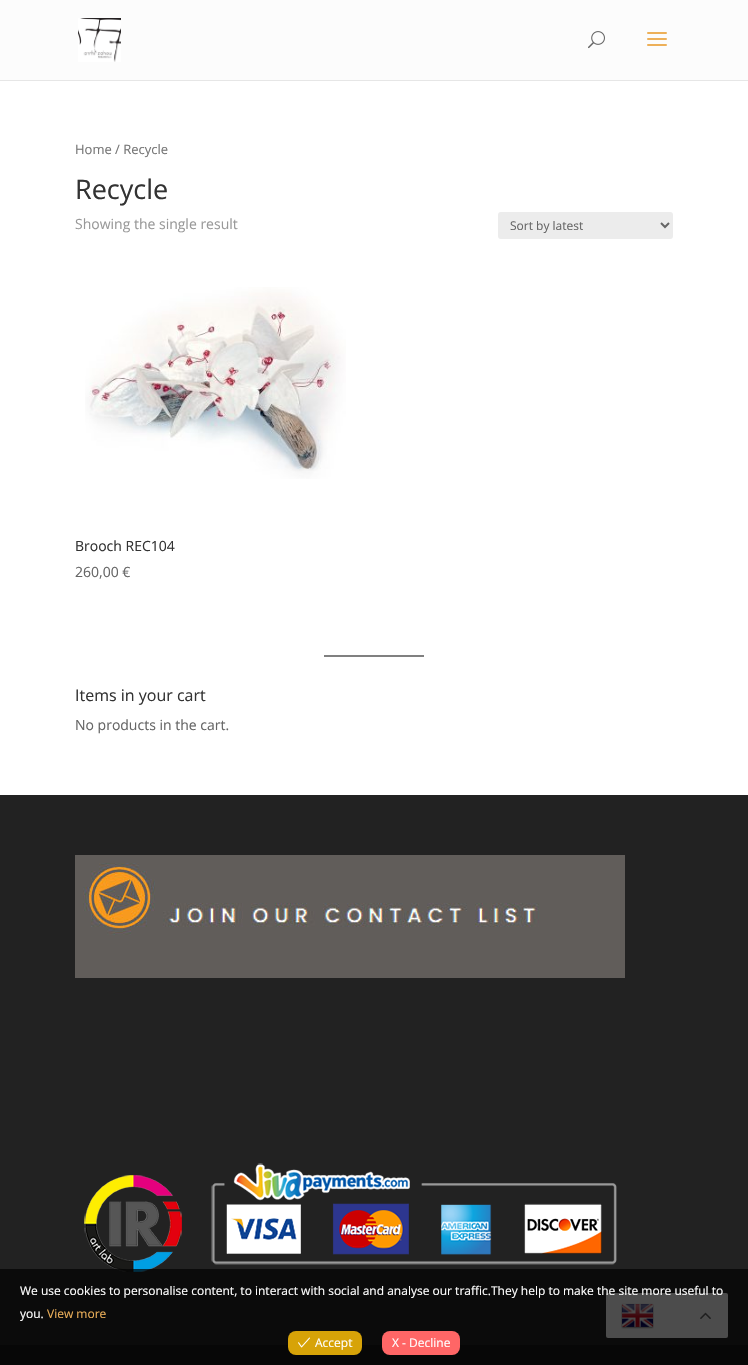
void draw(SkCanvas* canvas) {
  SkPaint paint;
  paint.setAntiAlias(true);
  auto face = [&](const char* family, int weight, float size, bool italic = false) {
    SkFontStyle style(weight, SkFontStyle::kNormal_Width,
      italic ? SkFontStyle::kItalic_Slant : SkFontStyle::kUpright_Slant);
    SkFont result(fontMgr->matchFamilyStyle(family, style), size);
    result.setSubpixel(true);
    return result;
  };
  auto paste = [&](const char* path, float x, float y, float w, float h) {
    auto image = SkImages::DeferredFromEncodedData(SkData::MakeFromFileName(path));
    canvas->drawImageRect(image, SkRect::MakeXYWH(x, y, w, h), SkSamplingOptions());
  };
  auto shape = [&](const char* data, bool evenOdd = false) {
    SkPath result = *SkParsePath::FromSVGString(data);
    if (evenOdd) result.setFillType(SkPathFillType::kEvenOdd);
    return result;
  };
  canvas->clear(0xffffffff);
  paint.setColor(0xffe6e6e6);
  canvas->drawRect(SkRect::MakeXYWH(0, 80, 748, 1), paint);
  paint.setColor(0xfffcfcfc);
  canvas->drawRect(SkRect::MakeXYWH(0, 0, 748, 80), paint);
  paste("img/1.png", 78, 18, 43, 44);
  paste("img/2.png", 588, 31, 17, 18);
  paste("img/3.png", 647, 32, 20, 14);
  paint.setColor(0xffececec);
  canvas->drawRoundRect(SkRect::MakeXYWH(498, 212, 175, 27), 3, 3, paint);
  paint.setStroke(true);
  paint.setStrokeWidth(2);
  paint.setColor(0xff666666);
  canvas->drawPath(shape("M661 223L665 227L669 223"), paint);
  paste("img/4.png", 85, 287, 261, 192);
  paint.setStroke(false);
  paint.setColor(0xff808080);
  canvas->drawRect(SkRect::MakeXYWH(324, 655, 100, 2), paint);
  paint.setColor(0xff222222);
  canvas->drawRect(SkRect::MakeXYWH(0, 795, 748, 550), paint);
  paste("img/5.png", 75, 855, 550, 123);
  paste("img/6.png", 84, 1163, 533, 109);
  paint.setColor(0xff171717);
  canvas->drawRect(SkRect::MakeXYWH(0, 1345, 748, 20), paint);
  paint.setColor(0xffffffff);
  canvas->drawRoundRect(SkRect::MakeXYWH(606, 1293, 122, 45), 2, 2, paint);
  paste("img/8.png", 621, 1303, 33, 26);
  paste("img/9.png", 700, 1312, 11, 7);
  paint.setColor(0xb3000000);
  canvas->drawRect(SkRect::MakeXYWH(0, 1269, 748, 96), paint);
  paint.setColor(0xffd7a308);
  canvas->drawRoundRect(SkRect::MakeXYWH(288, 1331, 74, 24), 8, 8, paint);
  paste("img/7.png", 298, 1337, 12, 11);
  paint.setColor(0xffff6666);
  canvas->drawRoundRect(SkRect::MakeXYWH(382, 1331, 78, 24), 8, 8, paint);
  auto f0 = face("Open Sans", 400, 13);
  paint.setColor(0xff767676);
  canvas->drawString("Home / Recycle", 75, 154, f0, paint);
  auto f1 = face("Open Sans", 400, 27);
  paint.setColor(0xff333333);
  canvas->drawString("Recycle", 75, 199, f1, paint);
  auto f2 = face("Open Sans", 400, 14);
  paint.setColor(0xff999999);
  canvas->drawString("Showing the single result", 75, 229, f2, paint);
  auto f3 = face("Open Sans", 400, 12);
  paint.setColor(0xff666666);
  canvas->drawString("Sort by latest", 510, 230, f3, paint);
  paint.setColor(0xff333333);
  canvas->drawString("Brooch REC104", 75, 551, f2, paint);
  paint.setColor(0xff666666);
  canvas->drawString("260,00 €", 75, 577, f2, paint);
  auto f4 = face("Open Sans", 400, 16);
  paint.setColor(0xff333333);
  canvas->drawString("Items in your cart", 75, 701, f4, paint);
  paint.setColor(0xff666666);
  canvas->drawString("No products in the cart.", 75, 730, f2, paint);
  paint.setColor(0xffffffff);
  canvas->drawString("We use cookies to personalise content, to interact with social and analyse our traffic.They help to make the site more useful to", 20, 1295, f3, paint);
  canvas->drawString("you.", 20, 1318, f3, paint);
  paint.setColor(0xffedb059);
  canvas->drawString("View more", 47, 1318, f3, paint);
  paint.setColor(0xffffffff);
  canvas->drawString("Accept", 315, 1347, f3, paint);
  canvas->drawString("X - Decline", 392, 1347, f3, paint);
}
